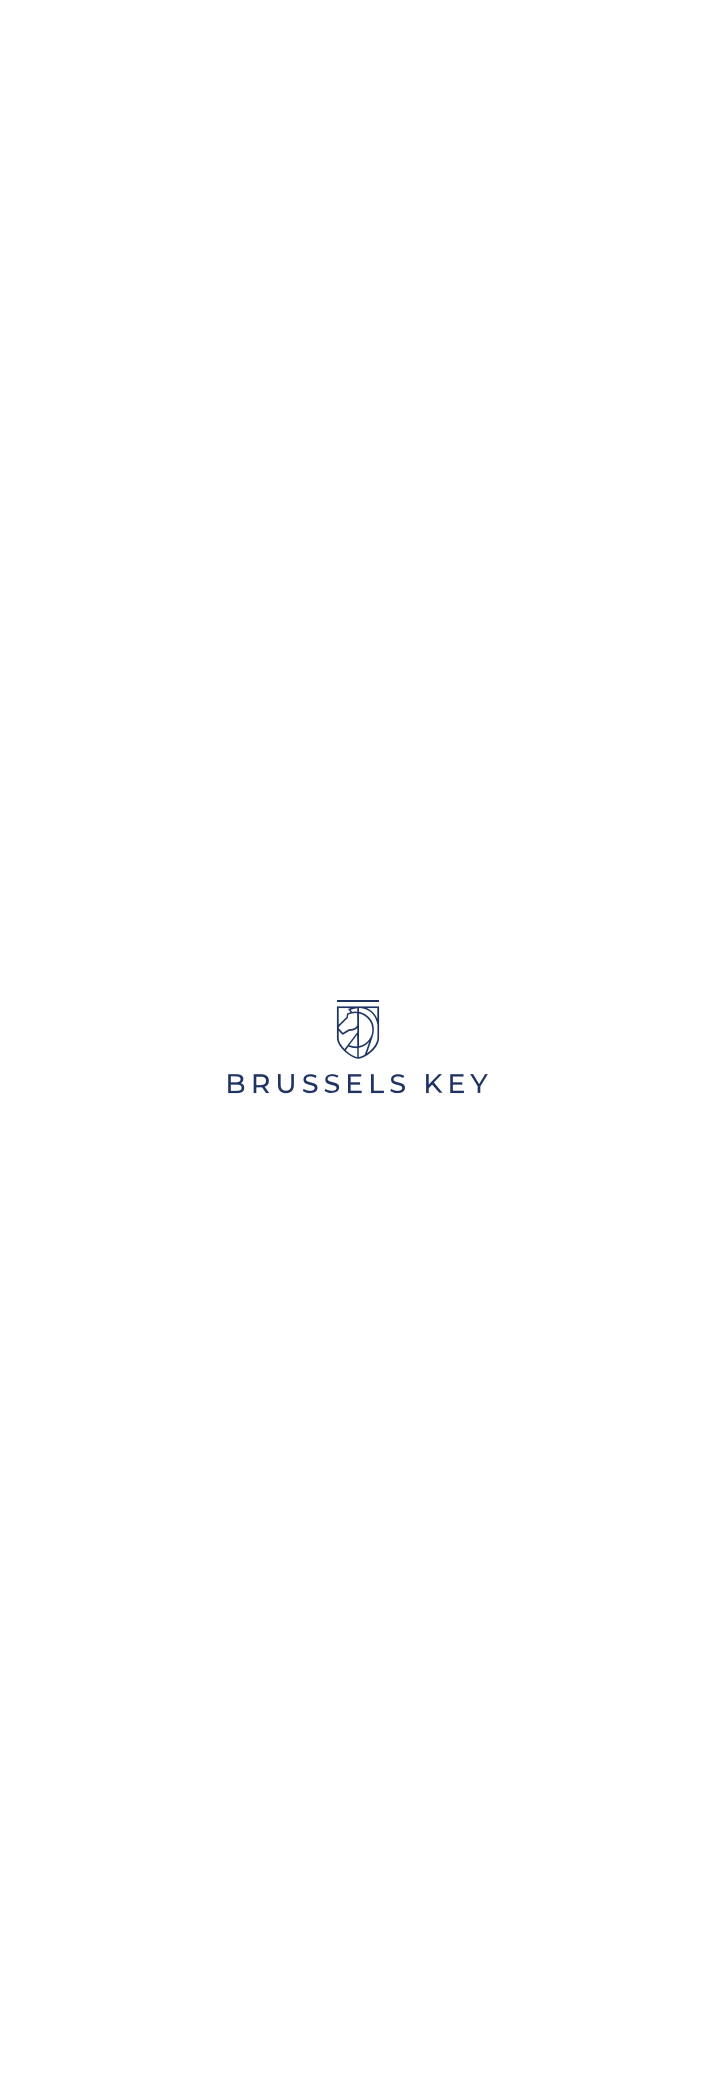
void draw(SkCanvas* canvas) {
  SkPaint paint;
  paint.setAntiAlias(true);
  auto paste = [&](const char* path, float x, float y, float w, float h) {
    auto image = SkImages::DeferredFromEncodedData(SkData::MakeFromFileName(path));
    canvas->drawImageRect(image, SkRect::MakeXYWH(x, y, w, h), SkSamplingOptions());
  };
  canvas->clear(0xffffffff);
  paste("img/1.png", 228, 1000, 260, 94);
}
